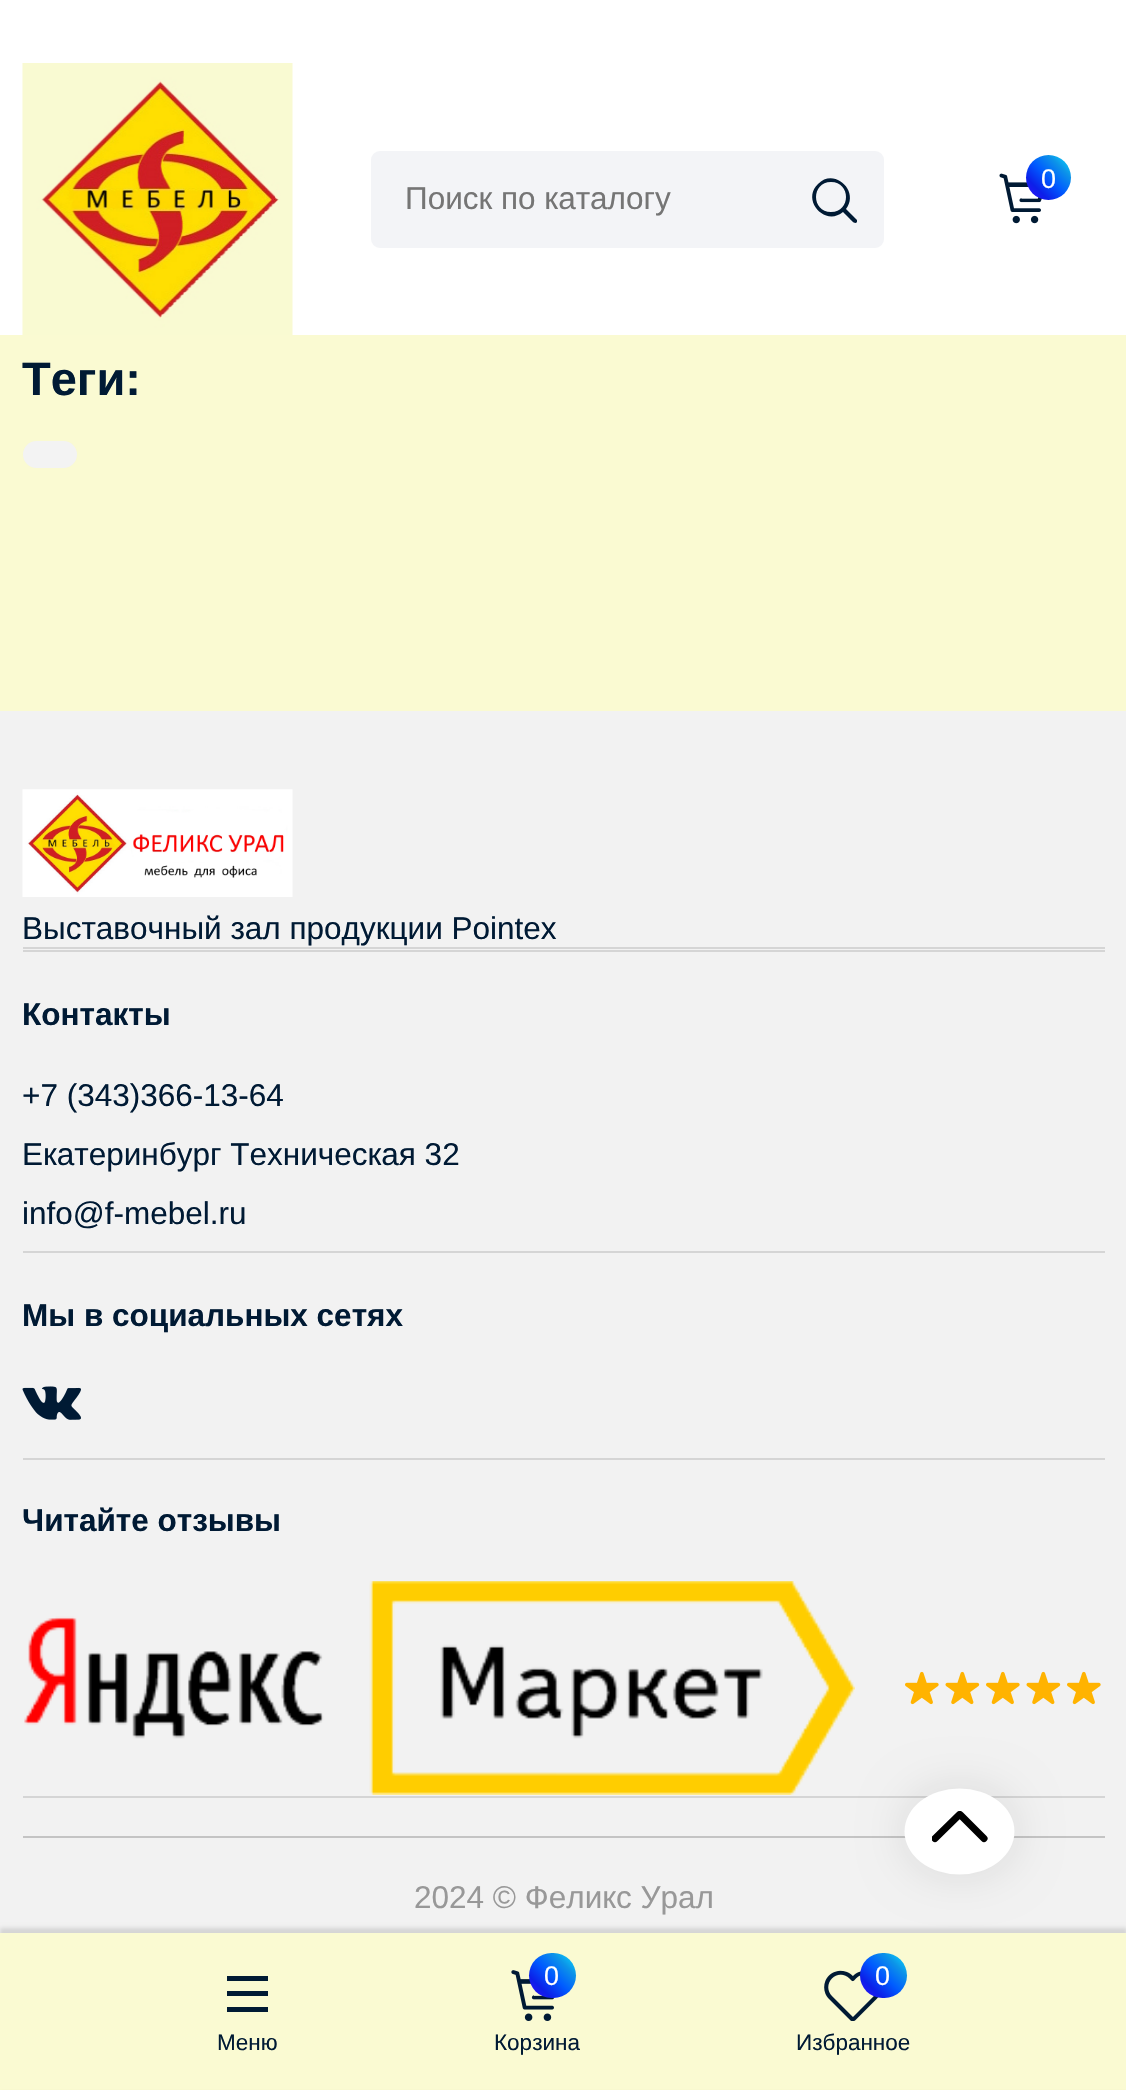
void draw(SkCanvas* canvas) {
  SkPaint paint;
  paint.setAntiAlias(true);
  auto face = [&](const char* family, int weight, float size, bool italic = false) {
    SkFontStyle style(weight, SkFontStyle::kNormal_Width,
      italic ? SkFontStyle::kItalic_Slant : SkFontStyle::kUpright_Slant);
    SkFont result(fontMgr->matchFamilyStyle(family, style), size);
    result.setSubpixel(true);
    return result;
  };
  auto paste = [&](const char* path, float x, float y, float w, float h) {
    auto image = SkImages::DeferredFromEncodedData(SkData::MakeFromFileName(path));
    canvas->drawImageRect(image, SkRect::MakeXYWH(x, y, w, h), SkSamplingOptions());
  };
  auto shape = [&](const char* data, bool evenOdd = false) {
    SkPath result = *SkParsePath::FromSVGString(data);
    if (evenOdd) result.setFillType(SkPathFillType::kEvenOdd);
    return result;
  };
  canvas->clear(0xfffafad2);
  paint.setColor(0xffffffff);
  canvas->drawRect(SkRect::MakeXYWH(0, 0, 1126, 335), paint);
  paste("img/1.png", 22, 63, 271, 272);
  paste("img/2.png", 999, 173, 43, 51);
  {
    const SkColor colors[] = {0xff390dff, 0xff0c1fe8, 0xff005bff, 0xff0c93e8, 0xff0de1ff};
    const float stops[] = {0, 0.25f, 0.5f, 0.75f, 1};
    const SkPoint ends[] = {{1026, 200}, {1071, 155}};
    paint.setShader(SkGradientShader::MakeLinear(ends, colors, stops, 5, SkTileMode::kClamp));
    paint.setAlpha(255);
  }
  canvas->drawCircle(1048.5f, 177.5f, 22.5f, paint);
  paint.setShader(nullptr);
  paint.setColor(0xfff3f4f7);
  canvas->drawRoundRect(SkRect::MakeXYWH(372, 152, 511, 95), 8, 8, paint);
  paint.setStroke(true);
  paint.setStrokeWidth(2);
  canvas->drawRoundRect(SkRect::MakeXYWH(372, 152, 511, 95), 8, 8, paint);
  paint.setStroke(false);
  paint.setColor(0xff001a34);
  canvas->drawPath(shape("M857 220L846 209C860 191 834 167 818 184C801 200 825 227 843 212L850 219C851 220 855 225 857 222C857 222 857 221 857 220ZM831 212C811 212 811 182 831 182C851 182 851 212 831 212Z"), paint);
  paint.setColor(0xfff3f3f3);
  canvas->drawRoundRect(SkRect::MakeXYWH(23, 441, 54, 27), 13.5f, 13.5f, paint);
  paint.setColor(0xfff2f2f2);
  canvas->drawRect(SkRect::MakeXYWH(0, 711, 1126, 1222), paint);
  paint.setColor(0xffd5d5d5);
  canvas->drawRect(SkRect::MakeXYWH(23, 947, 1082, 2), paint);
  paste("img/3.png", 22, 789, 271, 108);
  {
    const struct { float x, y, w, h; SkColor color; } items[] = {
      {23, 950, 1082, 2, 0xffd5d5d5},
      {23, 1458, 1082, 2, 0xffd5d5d5},
      {23, 1251, 1082, 2, 0xffd5d5d5},
    };
    for (auto [x, y, w, h, color] : items) {
      paint.setColor(color);
      canvas->drawRect(SkRect::MakeXYWH(x, y, w, h), paint);
    }
  }
  paste("img/4.png", 22, 1386, 59, 34);
  canvas->drawRect(SkRect::MakeXYWH(23, 1796, 1082, 2), paint);
  paste("img/5.png", 24, 1581, 831, 214);
  paste("img/6.png", 905, 1671, 34, 34);
  paste("img/7.png", 945, 1671, 35, 34);
  paste("img/6.png", 986, 1671, 34, 34);
  paste("img/7.png", 1026, 1671, 35, 34);
  paste("img/6.png", 1067, 1671, 34, 34);
  paint.setColor(0xffc4c4c4);
  canvas->drawRect(SkRect::MakeXYWH(23, 1836, 1082, 2), paint);
  paint.setColor(0x1a000000);
  paint.setMaskFilter(SkMaskFilter::MakeBlur(kNormal_SkBlurStyle, 22.5f));
  canvas->drawRoundRect(SkRect::MakeXYWH(905, 1789, 110, 85), 42.5f, 42.5f, paint);
  paint.setMaskFilter(nullptr);
  paint.setColor(0xffffffff);
  canvas->drawOval(SkRect::MakeXYWH(904.5f, 1788.5f, 110, 86), paint);
  canvas->save();
  canvas->clipRect(SkRect::MakeXYWH(932, 1811, 56, 32));
  paint.setStroke(true);
  paint.setStrokeWidth(7.1f);
  paint.setStrokeCap(SkPaint::kRound_Cap);
  paint.setColor(0xff000000);
  canvas->drawPath(shape("M935 1838.5L959 1815C959.5 1814.5 960 1814.5 960.5 1815L984 1838.5"), paint);
  canvas->restore();
  paint.setStroke(false);
  paint.setColor(0x1f000000);
  paint.setMaskFilter(SkMaskFilter::MakeBlur(kNormal_SkBlurStyle, 2));
  canvas->drawRect(SkRect::MakeXYWH(0, 1928, 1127, 158), paint);
  paint.setMaskFilter(nullptr);
  {
    const struct { float x, y, w, h; SkColor color; } items[] = {
      {0, 1933, 1126, 156, 0xfffafad2},
      {227, 1976, 41, 5, 0xff001a34},
      {227, 1991, 41, 5, 0xff001a34},
      {227, 2007, 41, 5, 0xff001a34},
    };
    for (auto [x, y, w, h, color] : items) {
      paint.setColor(color);
      canvas->drawRect(SkRect::MakeXYWH(x, y, w, h), paint);
    }
  }
  paste("img/8.png", 511, 1970, 44, 51);
  {
    const SkColor colors[] = {0xff390dff, 0xff0c1fe8, 0xff005bff, 0xff0c93e8, 0xff0de1ff};
    const float stops[] = {0, 0.25f, 0.5f, 0.75f, 1};
    const SkPoint ends[] = {{529, 1999}, {575, 1952}};
    paint.setShader(SkGradientShader::MakeLinear(ends, colors, stops, 5, SkTileMode::kClamp));
    paint.setAlpha(255);
  }
  canvas->drawRoundRect(SkRect::MakeXYWH(529, 1953, 47, 45), 22.5f, 22.5f, paint);
  paste("img/9.png", 824, 1970, 55, 51);
  {
    const SkColor colors[] = {0xff390dff, 0xff0c1fe8, 0xff005bff, 0xff0c93e8, 0xff0de1ff};
    const float stops[] = {0, 0.25f, 0.5f, 0.75f, 1};
    const SkPoint ends[] = {{860, 1999}, {906, 1952}};
    paint.setShader(SkGradientShader::MakeLinear(ends, colors, stops, 5, SkTileMode::kClamp));
    paint.setAlpha(255);
  }
  canvas->drawRoundRect(SkRect::MakeXYWH(860, 1953, 47, 45), 22.5f, 22.5f, paint);
  auto f0 = face("Liberation Sans", 400, 27);
  paint.setShader(nullptr);
  paint.setColor(0xffffffff);
  canvas->drawString("0", 1041, 188, f0, paint);
  auto f1 = face("Liberation Sans", 400, 31.5f);
  paint.setColor(0xff757575);
  canvas->drawString("Поиск по каталогу", 405, 209, f1, paint);
  auto f2 = face("Liberation Sans", 700, 47);
  paint.setColor(0xff001a34);
  canvas->drawString("Теги:", 22, 395, f2, paint);
  canvas->drawString("Выставочный зал продукции Pointex", 22, 939, f1, paint);
  auto f3 = face("Liberation Sans", 700, 31.5f);
  canvas->drawString("Контакты", 22, 1025, f3, paint);
  {
    const struct { const char* s; float x, y; } items[] = {
      {"+7 (343)366-13-64", 22, 1106},
      {"Екатеринбург Техническая 32", 22, 1165},
      {"info@f-mebel.ru", 22, 1224},
    };
    for (auto [s, x, y] : items) {
      canvas->drawString(s, x, y, f1, paint);
    }
  }
  canvas->drawString("Мы в социальных сетях", 22, 1326, f3, paint);
  canvas->drawString("Читайте отзывы", 22, 1531, f3, paint);
  paint.setColor(0xff989898);
  canvas->drawString("2024 © Феликс Урал", 414, 1908, f1, paint);
  auto f4 = face("Liberation Sans", 400, 22.5f);
  paint.setColor(0xff001a34);
  canvas->drawString("Меню", 217, 2050, f4, paint);
  paint.setColor(0xffffffff);
  canvas->drawString("0", 544, 1985, f0, paint);
  paint.setColor(0xff001a34);
  canvas->drawString("Корзина", 494, 2050, f4, paint);
  paint.setColor(0xffffffff);
  canvas->drawString("0", 875, 1985, f0, paint);
  paint.setColor(0xff001a34);
  canvas->drawString("Избранное", 796, 2050, f4, paint);
}
